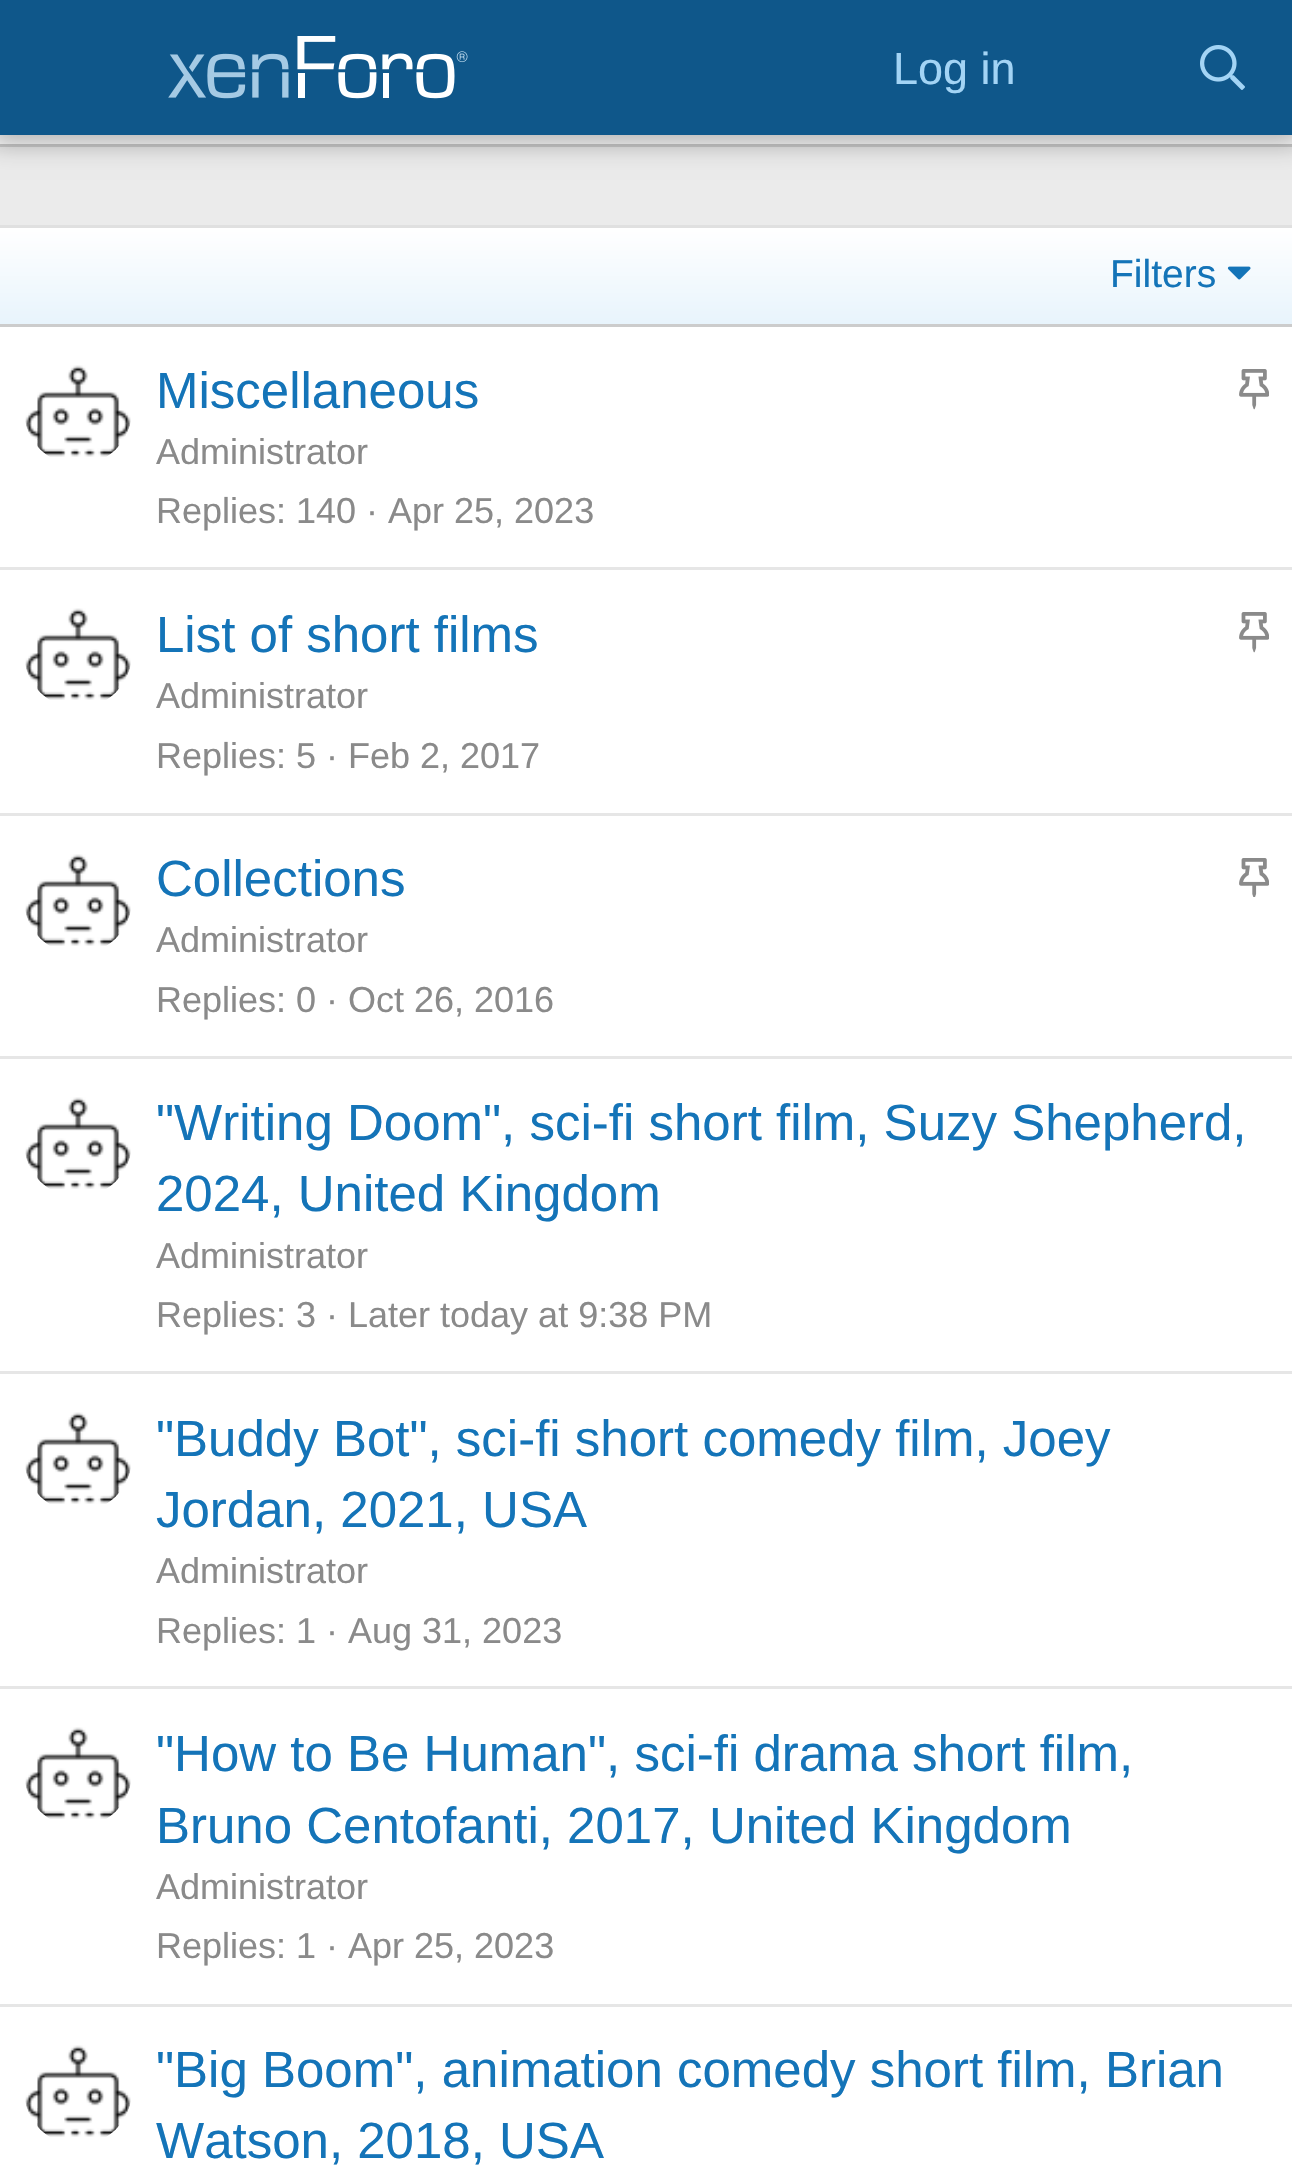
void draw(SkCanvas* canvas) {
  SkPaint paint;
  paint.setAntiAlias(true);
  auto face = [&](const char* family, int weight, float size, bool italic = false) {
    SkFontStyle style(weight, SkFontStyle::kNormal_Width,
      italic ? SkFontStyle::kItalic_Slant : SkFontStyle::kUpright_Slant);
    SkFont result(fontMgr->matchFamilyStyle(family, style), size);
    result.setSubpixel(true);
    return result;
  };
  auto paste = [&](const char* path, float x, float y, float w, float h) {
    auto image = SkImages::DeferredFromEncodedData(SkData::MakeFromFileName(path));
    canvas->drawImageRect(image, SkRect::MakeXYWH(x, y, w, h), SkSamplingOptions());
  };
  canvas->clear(0xffebebeb);
  paint.setColor(0xffffffff);
  canvas->drawRect(SkRect::MakeXYWH(0, 135, 1292, 9), paint);
  paint.setColor(0xffcccccc);
  canvas->drawRect(SkRect::MakeXYWH(0, 144, 1292, 3), paint);
  paint.setColor(0x4d000000);
  paint.setMaskFilter(SkMaskFilter::MakeBlur(kNormal_SkBlurStyle, 12));
  canvas->drawRect(SkRect::MakeXYWH(-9, -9, 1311, 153), paint);
  paint.setMaskFilter(nullptr);
  paint.setColor(0xff0f578a);
  canvas->drawRect(SkRect::MakeXYWH(0, 0, 1292, 135), paint);
  paste("img/1.png", 168, 36, 300, 63);
  paste("img/2.png", 1200, 45, 45, 45);
  paint.setColor(0xffffffff);
  canvas->drawRect(SkRect::MakeXYWH(0, 327, 1292, 1846), paint);
  paint.setColor(0xffe0e0e0);
  canvas->drawRect(SkRect::MakeXYWH(0, 225, 1292, 3), paint);
  {
    const SkColor colors[] = {0xffe8f4fc, 0xffffffff};
    const float stops[] = {0, 1};
    const SkPoint ends[] = {{647, 324}, {647, 228}};
    paint.setShader(SkGradientShader::MakeLinear(ends, colors, stops, 2, SkTileMode::kClamp));
    paint.setAlpha(255);
  }
  canvas->drawRect(SkRect::MakeXYWH(0, 228, 1292, 96), paint);
  paint.setShader(nullptr);
  paint.setColor(0xffcccccc);
  canvas->drawRect(SkRect::MakeXYWH(0, 324, 1292, 3), paint);
  paste("img/3.png", 1227, 266, 24, 14);
  paste("img/4.png", 25, 365, 106, 92);
  paste("img/5.png", 1239, 369, 30, 41);
  paint.setColor(0xffe6e6e6);
  canvas->drawRect(SkRect::MakeXYWH(0, 567, 1292, 3), paint);
  paste("img/6.png", 25, 608, 106, 92);
  paste("img/5.png", 1239, 612, 30, 41);
  canvas->drawRect(SkRect::MakeXYWH(0, 813, 1292, 3), paint);
  paste("img/6.png", 25, 854, 106, 92);
  paste("img/7.png", 1239, 858, 30, 39);
  canvas->drawRect(SkRect::MakeXYWH(0, 1056, 1292, 3), paint);
  paste("img/6.png", 25, 1097, 106, 92);
  canvas->drawRect(SkRect::MakeXYWH(0, 1371, 1292, 3), paint);
  paste("img/6.png", 25, 1412, 106, 92);
  canvas->drawRect(SkRect::MakeXYWH(0, 1686, 1292, 3), paint);
  paste("img/8.png", 25, 1727, 106, 92);
  canvas->drawRect(SkRect::MakeXYWH(0, 2004, 1292, 3), paint);
  paste("img/9.png", 25, 2045, 106, 92);
  auto f0 = face("Liberation Sans", 400, 45);
  paint.setColor(0xffa3d4f5);
  canvas->drawString("Log in", 893, 84, f0, paint);
  auto f1 = face("Liberation Sans", 400, 39);
  paint.setColor(0xff1474b8);
  canvas->drawString("Filters", 1110, 287, f1, paint);
  auto f2 = face("Liberation Sans", 400, 51);
  canvas->drawString("Miscellaneous", 156, 408, f2, paint);
  auto f3 = face("Liberation Sans", 400, 36);
  paint.setColor(0xff8a8a8a);
  {
    const struct { const char* s; float x, y; } items[] = {
      {"Administrator", 156, 464},
      {"Replies: 140", 156, 523},
      {"· Apr 25, 2023", 366, 523},
    };
    for (auto [s, x, y] : items) {
      canvas->drawString(s, x, y, f3, paint);
    }
  }
  paint.setColor(0xff1474b8);
  canvas->drawString("List of short films", 156, 652, f2, paint);
  paint.setColor(0xff8a8a8a);
  {
    const struct { const char* s; float x, y; } items[] = {
      {"Administrator", 156, 708},
      {"Replies: 5", 156, 768},
      {"· Feb 2, 2017", 326, 768},
    };
    for (auto [s, x, y] : items) {
      canvas->drawString(s, x, y, f3, paint);
    }
  }
  paint.setColor(0xff1474b8);
  canvas->drawString("Collections", 156, 896, f2, paint);
  paint.setColor(0xff8a8a8a);
  {
    const struct { const char* s; float x, y; } items[] = {
      {"Administrator", 156, 952},
      {"Replies: 0", 156, 1012},
      {"· Oct 26, 2016", 326, 1012},
    };
    for (auto [s, x, y] : items) {
      canvas->drawString(s, x, y, f3, paint);
    }
  }
  paint.setColor(0xff1474b8);
  canvas->drawString("\"Writing Doom\", sci-fi short film, Suzy Shepherd,", 156, 1140, f2, paint);
  canvas->drawString("2024, United Kingdom", 156, 1211, f2, paint);
  paint.setColor(0xff8a8a8a);
  {
    const struct { const char* s; float x, y; } items[] = {
      {"Administrator", 156, 1268},
      {"Replies: 3", 156, 1327},
      {"· Later today at 9:38 PM", 326, 1327},
    };
    for (auto [s, x, y] : items) {
      canvas->drawString(s, x, y, f3, paint);
    }
  }
  paint.setColor(0xff1474b8);
  canvas->drawString("\"Buddy Bot\", sci-fi short comedy film, Joey", 156, 1456, f2, paint);
  canvas->drawString("Jordan, 2021, USA", 156, 1527, f2, paint);
  paint.setColor(0xff8a8a8a);
  {
    const struct { const char* s; float x, y; } items[] = {
      {"Administrator", 156, 1583},
      {"Replies: 1", 156, 1643},
      {"· Aug 31, 2023", 326, 1643},
    };
    for (auto [s, x, y] : items) {
      canvas->drawString(s, x, y, f3, paint);
    }
  }
  paint.setColor(0xff1474b8);
  canvas->drawString("\"How to Be Human\", sci-fi drama short film,", 156, 1771, f2, paint);
  canvas->drawString("Bruno Centofanti, 2017, United Kingdom", 156, 1843, f2, paint);
  paint.setColor(0xff8a8a8a);
  {
    const struct { const char* s; float x, y; } items[] = {
      {"Administrator", 156, 1899},
      {"Replies: 1", 156, 1958},
      {"· Apr 25, 2023", 326, 1958},
    };
    for (auto [s, x, y] : items) {
      canvas->drawString(s, x, y, f3, paint);
    }
  }
  paint.setColor(0xff1474b8);
  canvas->drawString("\"Big Boom\", animation comedy short film, Brian", 156, 2087, f2, paint);
  canvas->drawString("Watson, 2018, USA", 156, 2158, f2, paint);
}
